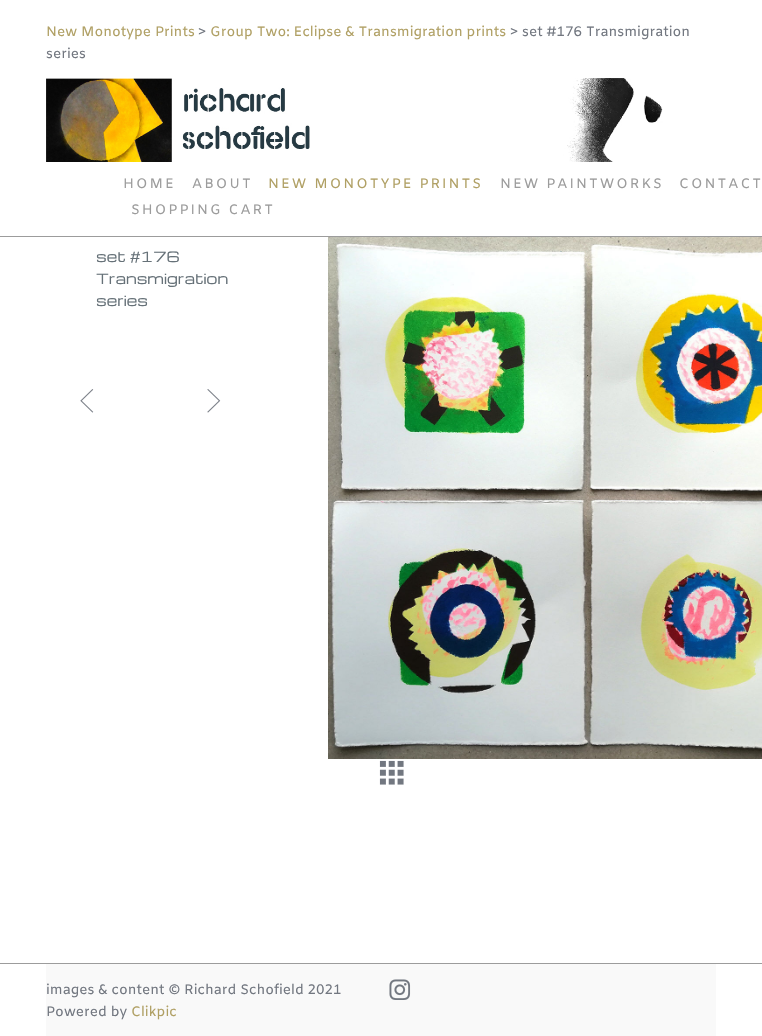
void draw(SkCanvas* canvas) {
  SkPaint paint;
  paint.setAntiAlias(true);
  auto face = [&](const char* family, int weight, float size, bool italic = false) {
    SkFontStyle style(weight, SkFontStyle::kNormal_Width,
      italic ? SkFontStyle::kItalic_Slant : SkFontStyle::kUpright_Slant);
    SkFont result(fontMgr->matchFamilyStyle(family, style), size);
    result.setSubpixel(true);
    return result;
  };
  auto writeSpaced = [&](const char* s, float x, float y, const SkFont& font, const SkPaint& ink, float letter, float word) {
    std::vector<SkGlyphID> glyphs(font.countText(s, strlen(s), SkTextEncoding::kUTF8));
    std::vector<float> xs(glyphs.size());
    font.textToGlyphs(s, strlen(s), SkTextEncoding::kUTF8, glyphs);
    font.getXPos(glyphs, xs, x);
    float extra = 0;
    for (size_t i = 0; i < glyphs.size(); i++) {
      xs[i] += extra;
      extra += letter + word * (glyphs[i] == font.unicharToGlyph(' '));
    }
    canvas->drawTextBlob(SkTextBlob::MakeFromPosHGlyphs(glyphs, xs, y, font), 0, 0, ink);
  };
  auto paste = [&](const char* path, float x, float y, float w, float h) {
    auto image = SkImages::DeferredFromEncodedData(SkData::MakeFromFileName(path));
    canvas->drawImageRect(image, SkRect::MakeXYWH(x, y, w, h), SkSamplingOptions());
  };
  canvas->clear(0xffffffff);
  paint.setColor(0xff9c9c9c);
  canvas->drawRect(SkRect::MakeXYWH(0, 236, 762, 1), paint);
  paste("img/1.png", 46, 78, 617, 84);
  paste("img/2.png", 80, 389, 14, 24);
  paste("img/3.png", 207, 389, 14, 24);
  paste("img/4.png", 328, 237, 434, 522);
  paste("img/5.png", 379, 760, 25, 25);
  canvas->drawRect(SkRect::MakeXYWH(0, 963, 762, 1), paint);
  paint.setColor(0xfff9f9f9);
  canvas->drawRect(SkRect::MakeXYWH(46, 964, 670, 72), paint);
  paste("img/6.png", 389, 979, 22, 21);
  auto f0 = face("Amiko", 400, 13.75f);
  paint.setColor(0xffb0a064);
  canvas->drawString("New Monotype Prints", 46, 36, f0, paint);
  paint.setColor(0xff727780);
  canvas->drawString(">", 198, 36, f0, paint);
  paint.setColor(0xffb0a064);
  canvas->drawString("Group Two: Eclipse & Transmigration prints", 210, 36, f0, paint);
  paint.setColor(0xff727780);
  canvas->drawString("> set #176 Transmigration", 510, 36, f0, paint);
  canvas->drawString("series", 46, 58, f0, paint);
  paint.setColor(0xff9c9c9c);
  writeSpaced("HOME", 123, 188, f0, paint, 2, 0);
  writeSpaced("ABOUT", 192, 188, f0, paint, 2, 0);
  paint.setColor(0xffb0a064);
  writeSpaced("NEW MONOTYPE PRINTS", 268, 188, f0, paint, 2, 0);
  paint.setColor(0xff9c9c9c);
  {
    const struct { const char* s; float x, y; } items[] = {
      {"NEW PAINTWORKS", 500, 188},
      {"CONTACT", 679, 188},
      {"SHOPPING CART", 131, 214},
    };
    for (auto [s, x, y] : items) {
      writeSpaced(s, x, y, f0, paint, 2, 0);
    }
  }
  auto f1 = face("Michroma", 400, 13.75f);
  paint.setColor(0xff667178);
  {
    const struct { const char* s; float x, y; } items[] = {
      {"set #176", 96, 262},
      {"Transmigration", 96, 284},
      {"series", 96, 306},
    };
    for (auto [s, x, y] : items) {
      canvas->drawString(s, x, y, f1, paint);
    }
  }
  paint.setColor(0xff727780);
  canvas->drawString("images & content © Richard Schofield 2021", 46, 994, f0, paint);
  canvas->drawString("Powered by", 46, 1016, f0, paint);
  paint.setColor(0xffb0a064);
  canvas->drawString("Clikpic", 131, 1016, f0, paint);
}
